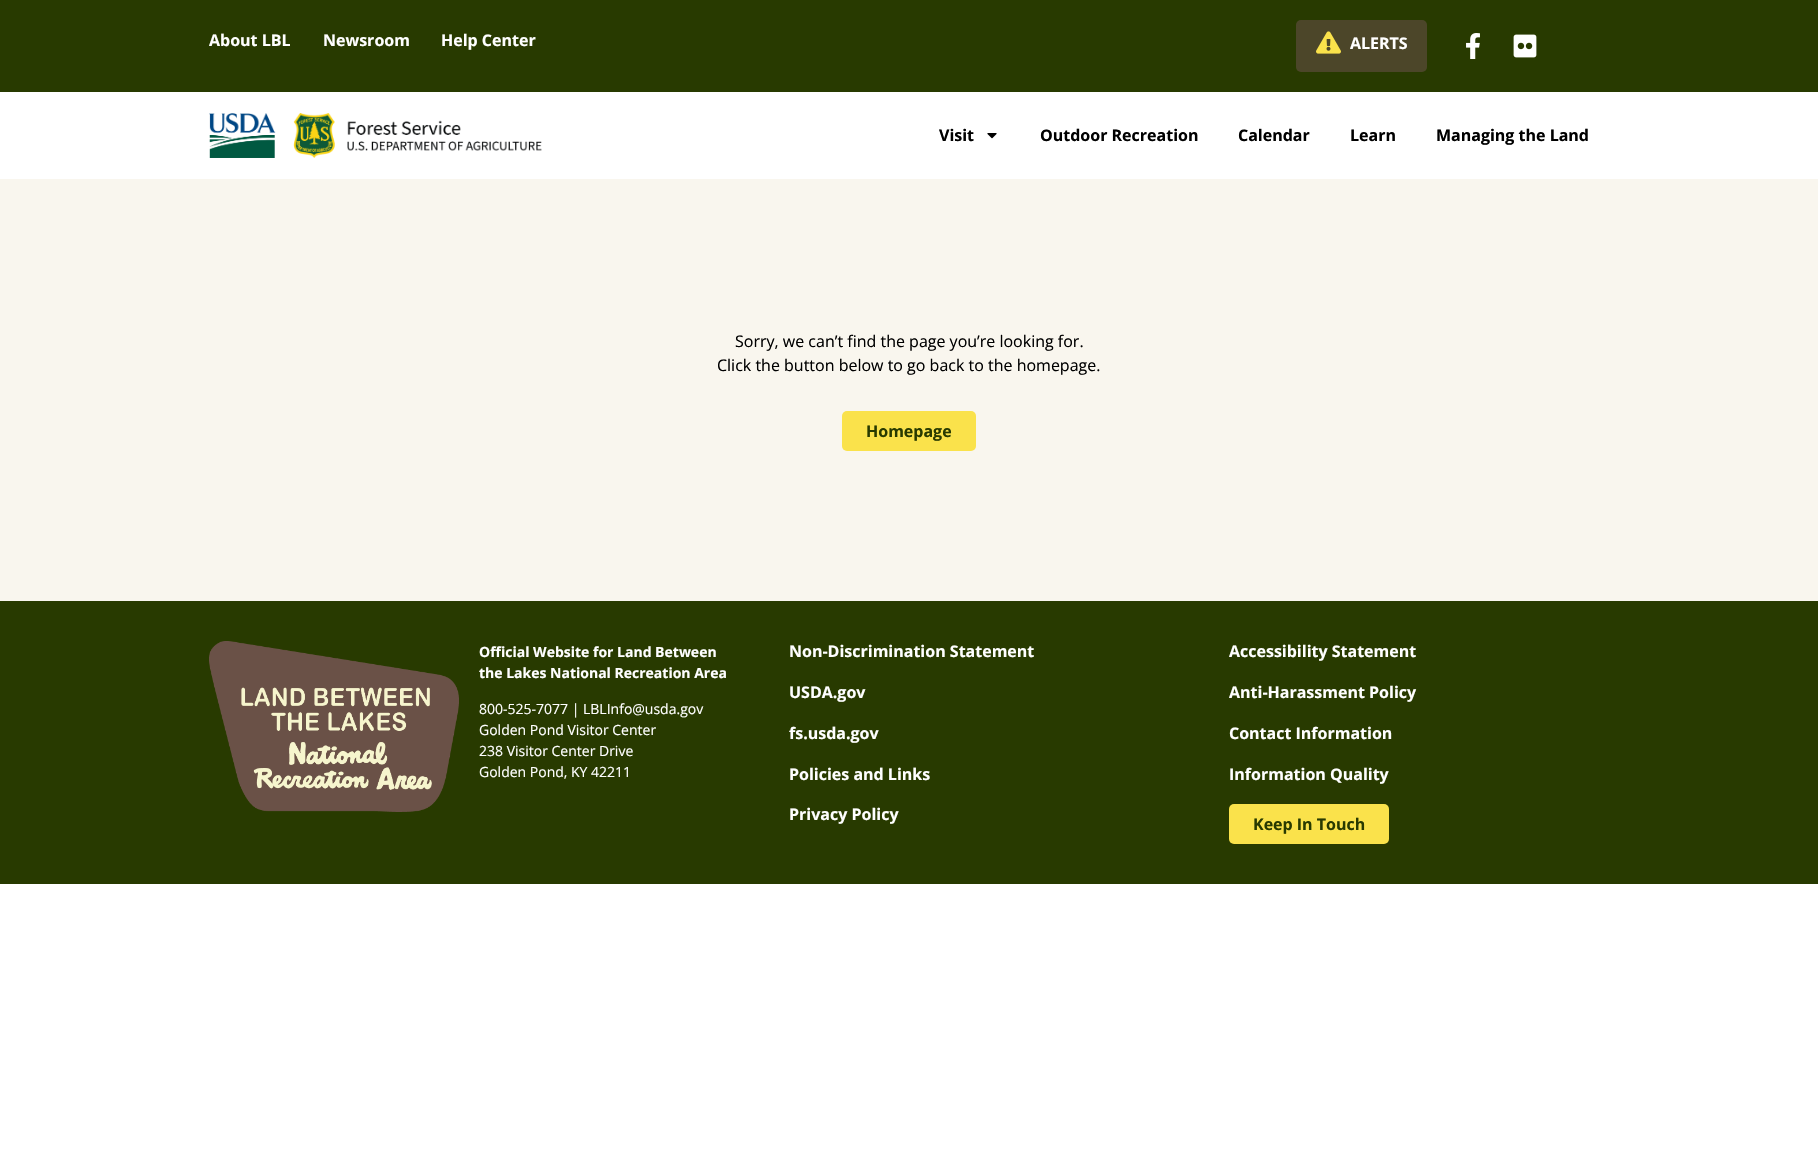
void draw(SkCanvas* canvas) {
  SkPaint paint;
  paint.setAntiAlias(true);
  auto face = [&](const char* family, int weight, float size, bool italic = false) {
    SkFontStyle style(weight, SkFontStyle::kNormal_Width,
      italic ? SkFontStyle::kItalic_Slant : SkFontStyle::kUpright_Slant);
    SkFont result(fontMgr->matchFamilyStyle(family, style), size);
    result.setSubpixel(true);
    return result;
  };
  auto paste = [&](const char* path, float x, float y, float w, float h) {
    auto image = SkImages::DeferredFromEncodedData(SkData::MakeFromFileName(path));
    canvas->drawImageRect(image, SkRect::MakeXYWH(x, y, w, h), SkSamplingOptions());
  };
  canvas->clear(0xffffffff);
  paint.setColor(0xff283a00);
  canvas->drawRect(SkRect::MakeXYWH(0, 0, 1818, 92), paint);
  paint.setColor(0xff4c4629);
  canvas->drawRoundRect(SkRect::MakeXYWH(1296, 20, 131, 52), 5, 5, paint);
  paste("img/1.png", 1316, 31, 25, 23);
  paste("img/2.png", 1466, 33, 14, 26);
  paste("img/3.png", 1513, 34, 24, 24);
  paste("img/4.png", 209, 113, 333, 45);
  paste("img/5.png", 987, 133, 10, 6);
  paint.setColor(0xfff9f6ee);
  canvas->drawRect(SkRect::MakeXYWH(0, 179, 1818, 422), paint);
  paint.setColor(0xfffae24b);
  canvas->drawRoundRect(SkRect::MakeXYWH(842, 411, 134, 40), 5, 5, paint);
  paint.setColor(0xff283a00);
  canvas->drawRect(SkRect::MakeXYWH(0, 601, 1818, 283), paint);
  paste("img/6.png", 209, 641, 250, 171);
  paint.setColor(0xfffae24b);
  canvas->drawRoundRect(SkRect::MakeXYWH(1229, 804, 160, 40), 5, 5, paint);
  auto f0 = face("Open Sans", 700, 16);
  paint.setColor(0xffffffff);
  {
    const struct { const char* s; float x, y; } items[] = {
      {"About LBL", 209, 46},
      {"Newsroom", 323, 46},
      {"Help Center", 441, 46},
      {"ALERTS", 1350, 49},
    };
    for (auto [s, x, y] : items) {
      canvas->drawString(s, x, y, f0, paint);
    }
  }
  paint.setColor(0xff000000);
  {
    const struct { const char* s; float x, y; } items[] = {
      {"Visit", 939, 141},
      {"Outdoor Recreation", 1040, 141},
      {"Calendar", 1238, 141},
      {"Learn", 1350, 141},
      {"Managing the Land", 1436, 141},
    };
    for (auto [s, x, y] : items) {
      canvas->drawString(s, x, y, f0, paint);
    }
  }
  auto f1 = face("Open Sans", 400, 16);
  canvas->drawString("Sorry, we can’t find the page you’re looking for.", 735, 347, f1, paint);
  canvas->drawString("Click the button below to go back to the homepage.", 717, 371, f1, paint);
  paint.setColor(0xff283a00);
  canvas->drawString("Homepage", 866, 437, f0, paint);
  auto f2 = face("Open Sans", 700, 14);
  paint.setColor(0xffffffff);
  canvas->drawString("Official Website for Land Between", 479, 657, f2, paint);
  canvas->drawString("the Lakes National Recreation Area", 479, 678, f2, paint);
  auto f3 = face("Open Sans", 400, 14);
  {
    const struct { const char* s; float x, y; } items[] = {
      {"800-525-7077 | LBLInfo@usda.gov", 479, 714},
      {"Golden Pond Visitor Center", 479, 735},
      {"238 Visitor Center Drive", 479, 756},
      {"Golden Pond, KY 42211", 479, 777},
    };
    for (auto [s, x, y] : items) {
      canvas->drawString(s, x, y, f3, paint);
    }
  }
  {
    const struct { const char* s; float x, y; } items[] = {
      {"Non-Discrimination Statement", 789, 657},
      {"USDA.gov", 789, 698},
      {"fs.usda.gov", 789, 739},
      {"Policies and Links", 789, 780},
      {"Privacy Policy", 789, 820},
      {"Accessibility Statement", 1229, 657},
      {"Anti-Harassment Policy", 1229, 698},
      {"Contact Information", 1229, 739},
      {"Information Quality", 1229, 780},
    };
    for (auto [s, x, y] : items) {
      canvas->drawString(s, x, y, f0, paint);
    }
  }
  paint.setColor(0xff283a00);
  canvas->drawString("Keep In Touch", 1253, 830, f0, paint);
}
